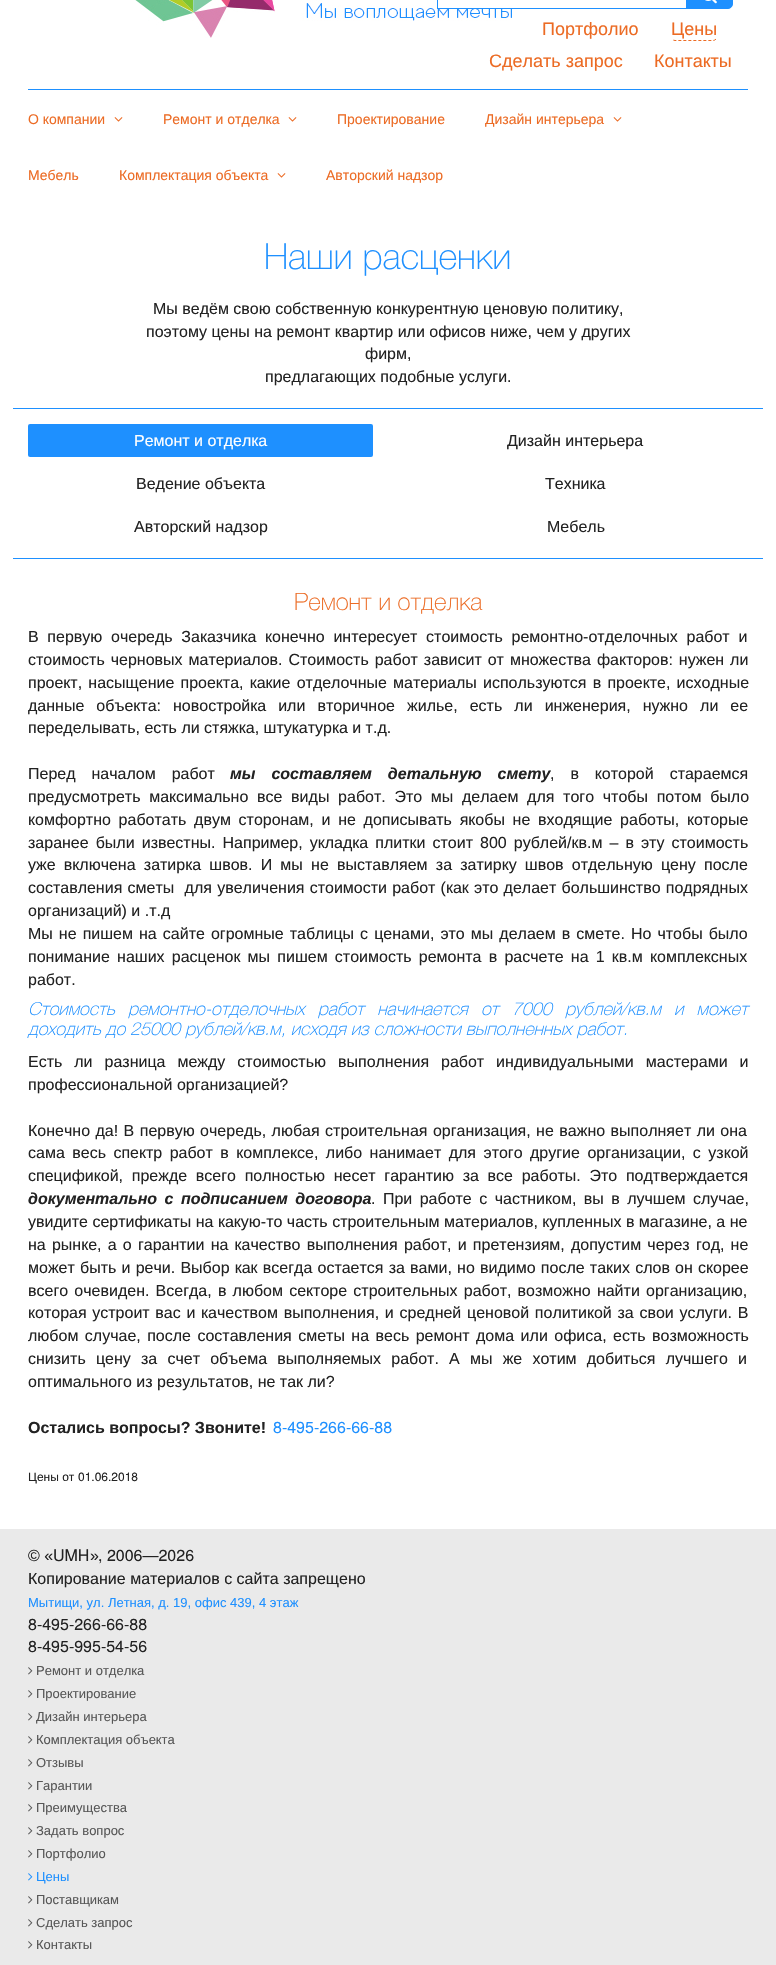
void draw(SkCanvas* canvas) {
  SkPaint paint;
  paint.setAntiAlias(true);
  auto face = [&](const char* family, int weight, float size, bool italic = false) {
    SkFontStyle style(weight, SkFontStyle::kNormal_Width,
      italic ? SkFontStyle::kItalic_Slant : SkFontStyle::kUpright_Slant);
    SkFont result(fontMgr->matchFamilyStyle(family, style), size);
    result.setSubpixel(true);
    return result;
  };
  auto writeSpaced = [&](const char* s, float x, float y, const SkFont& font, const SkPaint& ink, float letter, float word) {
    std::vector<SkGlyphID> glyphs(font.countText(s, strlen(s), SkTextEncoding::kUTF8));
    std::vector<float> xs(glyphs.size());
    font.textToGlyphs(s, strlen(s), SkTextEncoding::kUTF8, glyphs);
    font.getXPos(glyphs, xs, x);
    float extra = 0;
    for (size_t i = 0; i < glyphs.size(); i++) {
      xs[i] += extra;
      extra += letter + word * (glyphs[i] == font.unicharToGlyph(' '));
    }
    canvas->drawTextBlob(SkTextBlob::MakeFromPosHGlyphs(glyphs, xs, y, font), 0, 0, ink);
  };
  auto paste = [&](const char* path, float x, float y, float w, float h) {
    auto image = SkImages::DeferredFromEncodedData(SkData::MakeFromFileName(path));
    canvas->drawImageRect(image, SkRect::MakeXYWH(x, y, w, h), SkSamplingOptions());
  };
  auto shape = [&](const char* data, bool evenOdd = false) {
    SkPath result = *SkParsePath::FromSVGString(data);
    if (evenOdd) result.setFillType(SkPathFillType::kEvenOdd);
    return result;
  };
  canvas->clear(0xffffffff);
  paste("img/1.png", 135, 0, 377, 38);
  paint.setColor(0xffffffff);
  canvas->drawRect(SkRect::MakeXYWH(438, 5, 69, 3), paint);
  paint.setStroke(true);
  paint.setStrokeWidth(1);
  paint.setColor(0xff1e90ff);
  canvas->drawRect(SkRect::MakeXYWH(437.5f, -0.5f, 249, 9), paint);
  paint.setStroke(false);
  canvas->drawPath(shape("M686.5-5.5H728C730.5-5.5 732.5-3.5 732.5-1V4C732.5 6.5 730.5 8.5 728 8.5H686.5Z"), paint);
  paint.setStroke(true);
  canvas->drawPath(shape("M686.5-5.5H728C730.5-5.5 732.5-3.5 732.5-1V4C732.5 6.5 730.5 8.5 728 8.5H686.5Z"), paint);
  paste("img/2.png", 705, 0, 12, 4);
  paint.setColor(0xffec6b24);
  paint.setPathEffect(SkDashPathEffect::Make({{3, 2}}, 0));
  canvas->drawPath(shape("M716 39C715.5 40 714 40.5 713 40.5H675C674 40.5 672.5 40 672 39"), paint);
  paint.setPathEffect(nullptr);
  paint.setColor(0xffffffff);
  canvas->drawPath(shape("M672 39C669 36.5 670.5 28 670.5 25C670.5 11 667.5 9.5 681.5 9.5H706.5C720.5 9.5 717.5 11 717.5 25C717.5 28 719 36.5 716 39"), paint);
  paint.setStroke(false);
  paint.setColor(0xff1e90ff);
  canvas->drawRect(SkRect::MakeXYWH(28, 89, 720, 1), paint);
  paste("img/3.png", 114, 117, 9, 5);
  paste("img/3.png", 288, 117, 9, 5);
  paste("img/3.png", 613, 117, 9, 5);
  paste("img/3.png", 277, 173, 9, 5);
  canvas->drawRect(SkRect::MakeXYWH(13, 408, 750, 1), paint);
  canvas->drawRect(SkRect::MakeXYWH(13, 558, 750, 1), paint);
  canvas->drawRoundRect(SkRect::MakeXYWH(28, 424, 345, 33), 2, 2, paint);
  paint.setColor(0xffeaeaea);
  canvas->drawRect(SkRect::MakeXYWH(0, 1529, 776, 436), paint);
  paste("img/4.png", 28, 1667, 5, 8);
  paste("img/4.png", 28, 1690, 5, 8);
  paste("img/4.png", 28, 1713, 5, 8);
  paste("img/4.png", 28, 1736, 5, 8);
  paste("img/4.png", 28, 1759, 5, 8);
  paste("img/4.png", 28, 1782, 5, 8);
  paste("img/4.png", 28, 1804, 5, 8);
  paste("img/4.png", 28, 1827, 5, 8);
  paste("img/4.png", 28, 1850, 5, 8);
  paste("img/5.png", 28, 1873, 5, 8);
  paste("img/4.png", 28, 1896, 5, 8);
  paste("img/4.png", 28, 1919, 5, 8);
  paste("img/4.png", 28, 1941, 5, 8);
  auto f0 = face("Liberation Sans", 400, 18);
  paint.setColor(0xffec6b24);
  {
    const struct { const char* s; float x, y; } items[] = {
      {"Портфолио", 542, 35},
      {"Цены", 671, 35},
      {"Сделать запрос", 489, 67},
      {"Контакты", 654, 67},
    };
    for (auto [s, x, y] : items) {
      canvas->drawString(s, x, y, f0, paint);
    }
  }
  auto f1 = face("Liberation Sans", 400, 14);
  {
    const struct { const char* s; float x, y; } items[] = {
      {"О компании", 28, 124},
      {"Ремонт и отделка", 163, 124},
      {"Проектирование", 337, 124},
      {"Дизайн интерьера", 485, 124},
      {"Мебель", 28, 180},
      {"Комплектация объекта", 119, 180},
      {"Авторский надзор", 326, 180},
    };
    for (auto [s, x, y] : items) {
      canvas->drawString(s, x, y, f1, paint);
    }
  }
  auto f2 = face("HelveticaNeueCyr", 100, 36);
  paint.setColor(0xff1e90ff);
  canvas->drawString("Наши расценки", 264, 269, f2, paint);
  auto f3 = face("Liberation Sans", 400, 16);
  paint.setColor(0xff222222);
  {
    const struct { const char* s; float x, y; } items[] = {
      {"Мы ведём свою собственную конкурентную ценовую политику,", 153, 314},
      {"поэтому цены на ремонт квартир или офисов ниже, чем у других", 146, 337},
      {"фирм,", 365, 359},
      {"предлагающих подобные услуги.", 265, 382},
    };
    for (auto [s, x, y] : items) {
      canvas->drawString(s, x, y, f3, paint);
    }
  }
  paint.setColor(0xffffffff);
  canvas->drawString("Ремонт и отделка", 134, 446, f3, paint);
  paint.setColor(0xff222222);
  {
    const struct { const char* s; float x, y; } items[] = {
      {"Дизайн интерьера", 507, 446},
      {"Ведение объекта", 136, 489},
      {"Техника", 545, 489},
      {"Авторский надзор", 134, 532},
      {"Мебель", 547, 532},
    };
    for (auto [s, x, y] : items) {
      canvas->drawString(s, x, y, f3, paint);
    }
  }
  auto f4 = face("HelveticaNeueCyr", 100, 24);
  paint.setColor(0xffec6b24);
  canvas->drawString("Ремонт и отделка", 294, 610, f4, paint);
  paint.setColor(0xff222222);
  writeSpaced("В первую очередь Заказчика конечно интересует стоимость ремонтно-отделочных работ и", 28, 642, f3, paint, 0, 4.25f);
  writeSpaced("стоимость черновых материалов. Стоимость работ зависит от множества факторов: нужен ли", 28, 665, f3, paint, 0, 1.5f);
  writeSpaced("проект, насыщение проекта, какие отделочные материалы используются в проекте, исходные", 28, 688, f3, paint, 0, 1.75f);
  writeSpaced("данные объекта: новостройка или вторичное жилье, есть ли инженерия, нужно ли ее", 28, 711, f3, paint, 0, 7.6f);
  canvas->drawString("переделывать, есть ли стяжка, штукатурка и т.д.", 28, 733, f3, paint);
  writeSpaced("Перед началом работ", 28, 779, f3, paint, 0, 11.5f);
  auto f5 = face("Liberation Sans", 700, 16, true);
  writeSpaced("мы составляем детальную смету", 230, 779, f5, paint, 0, 11.5f);
  writeSpaced(", в которой стараемся", 550, 779, f3, paint, 0, 11.5f);
  writeSpaced("предусмотреть максимально все виды работ. Это мы делаем для того чтобы потом было", 28, 802, f3, paint, 0, 4.25f);
  writeSpaced("комфортно работать двум сторонам, и не дописывать якобы не входящие работы, которые", 28, 825, f3, paint, 0, 3.25f);
  writeSpaced("заранее были известны. Например, укладка плитки стоит 800 рублей/кв.м – в эту стоимость", 28, 848, f3, paint, 0, 2.6f);
  writeSpaced("уже включена затирка швов. И мы не выставляем за затирку швов отдельную цену после", 28, 870, f3, paint, 0, 3.75f);
  writeSpaced("составления сметы  для увеличения стоимости работ (как это делает большинство подрядных", 28, 893, f3, paint, 0, 0.75f);
  canvas->drawString("организаций) и .т.д", 28, 916, f3, paint);
  writeSpaced("Мы не пишем на сайте огромные таблицы с ценами, это мы делаем в смете. Но чтобы было", 28, 939, f3, paint, 0, 1.6f);
  writeSpaced("понимание наших расценок мы пишем стоимость ремонта в расчете на 1 кв.м комплексных", 28, 962, f3, paint, 0, 2.75f);
  canvas->drawString("работ.", 28, 985, f3, paint);
  auto f6 = face("HelveticaNeueCyr", 100, 18, true);
  paint.setColor(0xff1e90ff);
  writeSpaced("Стоимость ремонтно-отделочных работ начинается от 7000 рублей/кв.м и может", 28, 1015, f6, paint, 0, 8.25f);
  canvas->drawString("доходить до 25000 рублей/кв.м, исходя из сложности выполненных работ.", 28, 1035, f6, paint);
  paint.setColor(0xff222222);
  writeSpaced("Есть ли разница между стоимостью выполнения работ индивидуальными мастерами и", 28, 1067, f3, paint, 0, 7.5f);
  canvas->drawString("профессиональной организацией?", 28, 1090, f3, paint);
  writeSpaced("Конечно да! В первую очередь, любая строительная организация, не важно выполняет ли она", 28, 1136, f3, paint, 0, 1);
  writeSpaced("сама весь спектр работ в комплексе, либо нанимает для этого другие организации, с узкой", 28, 1158, f3, paint, 0, 3);
  writeSpaced("спецификой, прежде всего полностью несет гарантию за все работы. Это подтверждается", 28, 1181, f3, paint, 0, 4.25f);
  writeSpaced("документально с подписанием договора", 28, 1204, f5, paint, 0, 3);
  writeSpaced(". При работе с частником, вы в лучшем случае,", 371, 1204, f3, paint, 0, 3);
  canvas->drawString("увидите сертификаты на какую-то часть строительным материалов, купленных в магазине, а не", 28, 1227, f3, paint);
  writeSpaced("на рынке, а о гарантии на качество выполнения работ, и претензиям, допустим через год, не", 28, 1250, f3, paint, 0, 1.75f);
  writeSpaced("может быть и речи. Выбор как всегда остается за вами, но видимо после таких слов он скорее", 28, 1273, f3, paint, 0, 0.75f);
  writeSpaced("всего очевиден. Всегда, в любом секторе строительных работ, возможно найти организацию,", 28, 1296, f3, paint, 0, 1.75f);
  writeSpaced("которая устроит вас и качеством выполнения, и средней ценовой политикой за свои услуги. В", 28, 1318, f3, paint, 0, 1.25f);
  writeSpaced("любом случае, после составления сметы на весь ремонт дома или офиса, есть возможность", 28, 1341, f3, paint, 0, 2);
  writeSpaced("снизить цену за счет объема выполняемых работ. А мы же хотим добиться лучшего и", 28, 1364, f3, paint, 0, 5.75f);
  canvas->drawString("оптимального из результатов, не так ли?", 28, 1387, f3, paint);
  auto f7 = face("Liberation Sans", 700, 16);
  canvas->drawString("Остались вопросы? Звоните!", 28, 1433, f7, paint);
  auto f8 = face("TeX Gyre Heros", 400, 16);
  paint.setColor(0xff1e90ff);
  canvas->drawString("8-495-266-66-88", 273, 1433, f8, paint);
  auto f9 = face("Liberation Sans", 400, 12);
  paint.setColor(0xff222222);
  canvas->drawString("Цены от", 28, 1481, f9, paint);
  auto f10 = face("TeX Gyre Heros", 400, 12);
  canvas->drawString("01.06.2018", 78, 1481, f10, paint);
  canvas->drawString("© «", 28, 1561, f3, paint);
  canvas->drawString("UMH", 53, 1561, f8, paint);
  canvas->drawString("»", 90, 1561, f3, paint);
  canvas->drawString(", 2006—2026", 98, 1561, f8, paint);
  canvas->drawString("Копирование материалов с сайта запрещено", 28, 1584, f3, paint);
  auto f11 = face("Liberation Sans", 400, 13);
  paint.setColor(0xff1e90ff);
  canvas->drawString("Мытищи, ул. Летная, д. 19, офис 439, 4 этаж", 28, 1607, f11, paint);
  paint.setColor(0xff222222);
  canvas->drawString("8-495-266-66-88", 28, 1630, f8, paint);
  canvas->drawString("8-495-995-54-56", 28, 1652, f8, paint);
  paint.setColor(0xff575757);
  {
    const struct { const char* s; float x, y; } items[] = {
      {"Ремонт и отделка", 36, 1675},
      {"Проектирование", 36, 1698},
      {"Дизайн интерьера", 36, 1721},
      {"Комплектация объекта", 36, 1744},
      {"Отзывы", 36, 1767},
      {"Гарантии", 36, 1790},
      {"Преимущества", 36, 1812},
      {"Задать вопрос", 36, 1835},
      {"Портфолио", 36, 1858},
    };
    for (auto [s, x, y] : items) {
      canvas->drawString(s, x, y, f11, paint);
    }
  }
  paint.setColor(0xff1e90ff);
  canvas->drawString("Цены", 36, 1881, f11, paint);
  paint.setColor(0xff575757);
  {
    const struct { const char* s; float x, y; } items[] = {
      {"Поставщикам", 36, 1904},
      {"Сделать запрос", 36, 1927},
      {"Контакты", 36, 1949},
    };
    for (auto [s, x, y] : items) {
      canvas->drawString(s, x, y, f11, paint);
    }
  }
}
